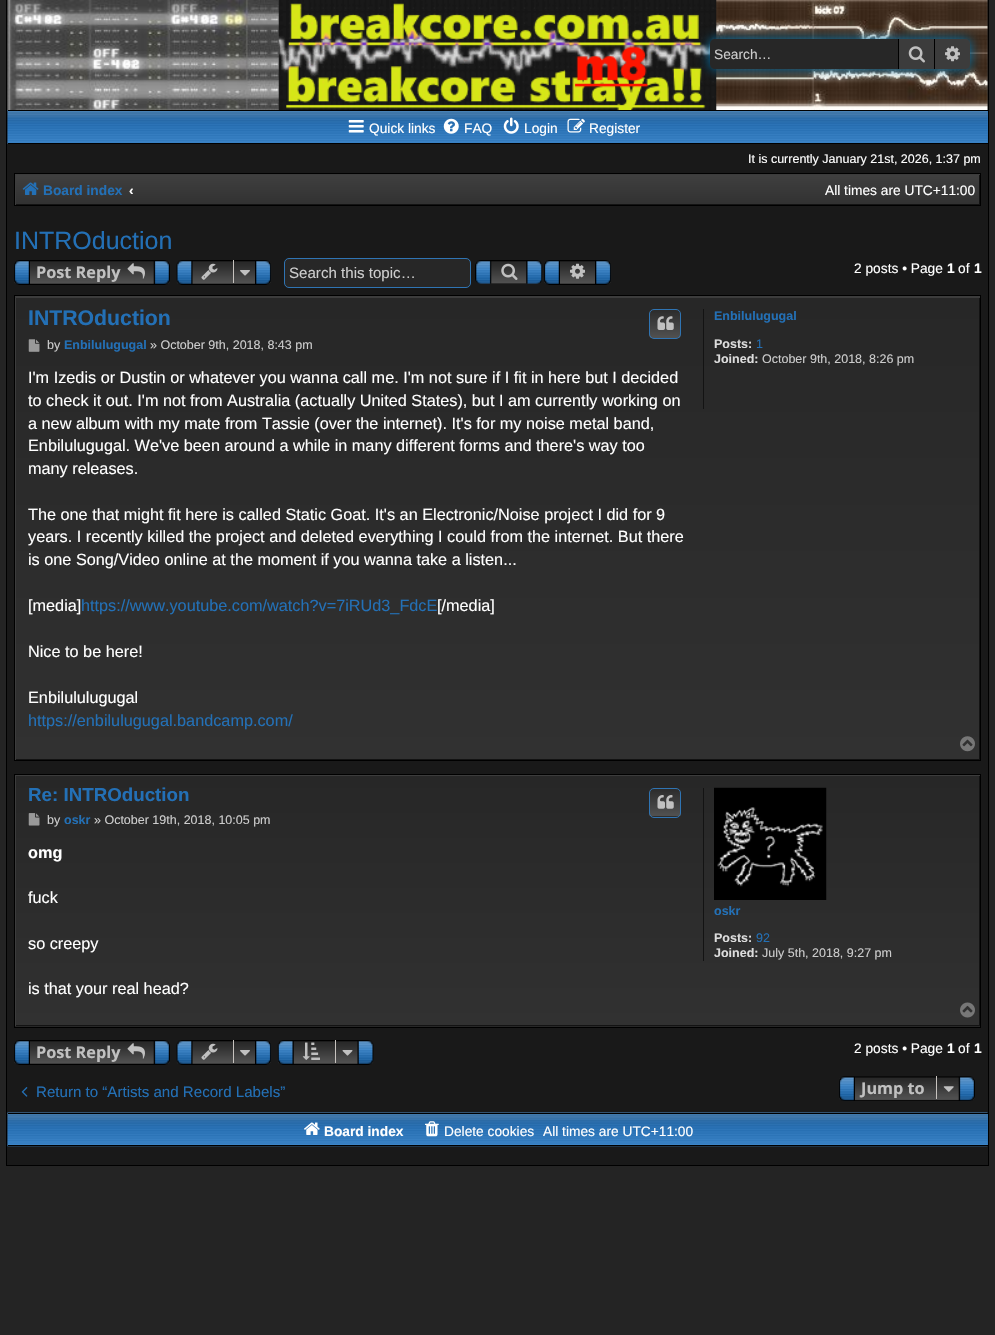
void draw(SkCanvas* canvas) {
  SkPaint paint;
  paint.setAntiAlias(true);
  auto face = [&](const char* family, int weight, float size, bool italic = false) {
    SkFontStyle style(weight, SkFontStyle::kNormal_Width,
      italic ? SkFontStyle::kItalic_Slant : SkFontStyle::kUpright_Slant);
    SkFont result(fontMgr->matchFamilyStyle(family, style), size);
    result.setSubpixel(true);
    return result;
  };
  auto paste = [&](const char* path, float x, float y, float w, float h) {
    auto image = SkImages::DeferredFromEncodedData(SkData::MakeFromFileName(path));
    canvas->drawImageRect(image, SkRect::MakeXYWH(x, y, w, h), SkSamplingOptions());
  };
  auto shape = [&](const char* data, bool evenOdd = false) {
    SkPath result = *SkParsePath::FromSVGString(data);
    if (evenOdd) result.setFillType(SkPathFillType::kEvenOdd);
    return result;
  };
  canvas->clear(0xff242424);
  {
    const struct { float x, y, w, h; SkColor color; } items[] = {
      {7, 0, 981, 1165, 0xff191919},
      {988, 0, 1, 1166, 0xff000000},
      {6, 1165, 983, 1, 0xff000000},
      {6, 0, 1, 1166, 0xff000000},
    };
    for (auto [x, y, w, h, color] : items) {
      paint.setColor(color);
      canvas->drawRect(SkRect::MakeXYWH(x, y, w, h), paint);
    }
  }
  paste("img/1.png", 7, 0, 981, 110);
  paste("img/2.png", 278, 0, 439, 110);
  paint.setColor(0xff0075b0);
  paint.setMaskFilter(SkMaskFilter::MakeBlur(kNormal_SkBlurStyle, 6));
  canvas->drawRoundRect(SkRect::MakeXYWH(710, 39, 260, 30), 5, 5, paint);
  paint.setMaskFilter(nullptr);
  paint.setColor(0xff272727);
  canvas->drawPath(shape("M715 39H898V69H715C712 69 710 67 710 64V44C710 41 712 39 715 39Z"), paint);
  {
    const struct { float x, y, w, h; SkColor color; } items[] = {
      {899, 39, 35, 30, 0xff3c3c3c},
      {934, 39, 1, 30, 0xff000000},
      {898, 39, 1, 30, 0xff000000},
    };
    for (auto [x, y, w, h, color] : items) {
      paint.setColor(color);
      canvas->drawRect(SkRect::MakeXYWH(x, y, w, h), paint);
    }
  }
  paste("img/3.png", 908, 46, 17, 17);
  paint.setColor(0xff3c3c3c);
  canvas->drawPath(shape("M935 39H965C968 39 970 41 970 44V64C970 67 968 69 965 69H935Z"), paint);
  paste("img/4.png", 945, 46, 15, 16);
  paint.setColor(0xff2f74b3);
  canvas->drawRect(SkRect::MakeXYWH(987, 111, 1, 32), paint);
  paste("img/5.png", 7, 110, 981, 34);
  paint.setColor(0xff000000);
  canvas->drawRect(SkRect::MakeXYWH(8, 110, 980, 1), paint);
  canvas->drawRect(SkRect::MakeXYWH(8, 143, 980, 1), paint);
  paste("img/6.png", 348, 120, 16, 13);
  paste("img/7.png", 443, 118, 16, 16);
  paste("img/8.png", 503, 117, 16, 17);
  paste("img/9.png", 567, 118, 18, 15);
  {
    const SkColor colors[] = {0xff404040, 0xff313131};
    const float stops[] = {0, 1};
    const SkPoint ends[] = {{498, 174}, {498, 205}};
    paint.setShader(SkGradientShader::MakeLinear(ends, colors, stops, 2, SkTileMode::kClamp));
    paint.setAlpha(255);
  }
  canvas->drawRect(SkRect::MakeXYWH(16, 175, 963, 29), paint);
  canvas->save();
  canvas->clipRect(SkRect::MakeXYWH(15, 174, 965, 31));
  paint.setShader(nullptr);
  paint.setColor(0xff131313);
  canvas->drawPath(shape("M-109 50H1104V329H-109ZM14 172H979V204H14Z", true), paint);
  paint.setColor(0xff3c3c3c);
  canvas->drawPath(shape("M-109 50H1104V329H-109ZM16 175H981V206H16Z", true), paint);
  canvas->restore();
  paint.setStroke(true);
  paint.setStrokeWidth(1);
  paint.setColor(0xff000000);
  canvas->drawRect(SkRect::MakeXYWH(14.5f, 173.5f, 966, 32), paint);
  paste("img/10.png", 22, 182, 17, 13);
  paste("img/11.png", 14, 260, 156, 25);
  paste("img/12.png", 127, 263, 18, 16);
  paste("img/13.png", 176, 260, 95, 25);
  paste("img/14.png", 201, 263, 17, 17);
  paint.setStroke(false);
  paint.setColor(0xffc7c3bf);
  canvas->drawRect(SkRect::MakeXYWH(233, 260, 1, 23), paint);
  paste("img/15.png", 240, 270, 10, 6);
  paint.setColor(0xff272727);
  canvas->drawRoundRect(SkRect::MakeXYWH(284.5f, 258.5f, 186, 29), 4.5f, 4.5f, paint);
  paint.setStroke(true);
  paint.setColor(0xff2f74b3);
  canvas->drawRoundRect(SkRect::MakeXYWH(284.5f, 258.5f, 186, 29), 4.5f, 4.5f, paint);
  paste("img/16.png", 475, 260, 68, 24);
  paste("img/17.png", 501, 263, 17, 17);
  paste("img/18.png", 544, 260, 67, 25);
  paste("img/19.png", 570, 263, 15, 16);
  paint.setStroke(false);
  {
    const SkColor colors[] = {0xff272727, 0xff313131};
    const float stops[] = {0, 1};
    const SkPoint ends[] = {{498, 296}, {498, 760}};
    paint.setShader(SkGradientShader::MakeLinear(ends, colors, stops, 2, SkTileMode::kClamp));
    paint.setAlpha(255);
  }
  canvas->drawRect(SkRect::MakeXYWH(16, 298, 963, 461), paint);
  canvas->save();
  canvas->clipRect(SkRect::MakeXYWH(15, 296, 965, 464));
  paint.setShader(nullptr);
  paint.setColor(0xff131313);
  canvas->drawPath(shape("M-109 172H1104V884H-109ZM14 295H979V759H14Z", true), paint);
  paint.setColor(0xff3c3c3c);
  canvas->drawPath(shape("M-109 172H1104V884H-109ZM16 298H981V761H16Z", true), paint);
  canvas->restore();
  paint.setStroke(true);
  paint.setColor(0xff000000);
  canvas->drawRect(SkRect::MakeXYWH(14.5f, 295.5f, 966, 465), paint);
  canvas->save();
  canvas->clipPath(shape("M654 309H676C679 309 681 311 681 314V334C681 337 679 339 676 339H654C651 339 649 337 649 334V314C649 311 651 309 654 309Z"), true);
  paint.setStroke(false);
  {
    const SkColor colors[] = {0xff2c2c2c, 0xff515151};
    const float stops[] = {0, 1};
    const SkPoint ends[] = {{665, 310}, {665, 338}};
    paint.setShader(SkGradientShader::MakeLinear(ends, colors, stops, 2, SkTileMode::kClamp));
    paint.setAlpha(255);
  }
  canvas->drawRect(SkRect::MakeXYWH(649, 310, 32, 28), paint);
  canvas->restore();
  paint.setStroke(true);
  paint.setShader(nullptr);
  paint.setColor(0xff2f74b3);
  canvas->drawRoundRect(SkRect::MakeXYWH(649.5f, 309.5f, 31, 29), 4.5f, 4.5f, paint);
  paste("img/20.png", 657, 316, 17, 14);
  paste("img/21.png", 28, 339, 12, 13);
  paint.setStroke(false);
  paint.setColor(0xff131313);
  canvas->drawRect(SkRect::MakeXYWH(703, 309, 1, 100), paint);
  paste("img/22.png", 960, 736, 15, 16);
  paint.setColor(0xff272727);
  canvas->drawRect(SkRect::MakeXYWH(15, 1026, 965, 1), paint);
  {
    const SkColor colors[] = {0xff272727, 0xff313131};
    const float stops[] = {0, 1};
    const SkPoint ends[] = {{498, 775}, {498, 1026}};
    paint.setShader(SkGradientShader::MakeLinear(ends, colors, stops, 2, SkTileMode::kClamp));
    paint.setAlpha(255);
  }
  canvas->drawRect(SkRect::MakeXYWH(16, 776, 963, 249), paint);
  canvas->save();
  canvas->clipRect(SkRect::MakeXYWH(15, 775, 965, 251));
  paint.setShader(nullptr);
  paint.setColor(0xff131313);
  canvas->drawPath(shape("M-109 651H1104V1150H-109ZM14 774H979V1025H14Z", true), paint);
  paint.setColor(0xff3c3c3c);
  canvas->drawPath(shape("M-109 651H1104V1150H-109ZM16 776H981V1028H16Z", true), paint);
  canvas->restore();
  paint.setStroke(true);
  paint.setColor(0xff000000);
  canvas->drawRect(SkRect::MakeXYWH(14.5f, 774.5f, 966, 253), paint);
  canvas->save();
  canvas->clipPath(shape("M654 788H676C679 788 681 790 681 793V813C681 816 679 818 676 818H654C651 818 649 816 649 813V793C649 790 651 788 654 788Z"), true);
  paint.setStroke(false);
  {
    const SkColor colors[] = {0xff2c2c2c, 0xff515151};
    const float stops[] = {0, 1};
    const SkPoint ends[] = {{665, 789}, {665, 816}};
    paint.setShader(SkGradientShader::MakeLinear(ends, colors, stops, 2, SkTileMode::kClamp));
    paint.setAlpha(255);
  }
  canvas->drawRect(SkRect::MakeXYWH(649, 789, 32, 27), paint);
  {
    const SkColor colors[] = {0xff2c2c2c, 0xff515151};
    const float stops[] = {0, 1};
    const SkPoint ends[] = {{665, 816}, {665, 844}};
    paint.setShader(SkGradientShader::MakeLinear(ends, colors, stops, 2, SkTileMode::kClamp));
    paint.setAlpha(255);
  }
  canvas->drawRect(SkRect::MakeXYWH(649, 816, 32, 2), paint);
  canvas->restore();
  paint.setStroke(true);
  paint.setShader(nullptr);
  paint.setColor(0xff2f74b3);
  canvas->drawRoundRect(SkRect::MakeXYWH(649.5f, 788.5f, 31, 29), 4.5f, 4.5f, paint);
  paste("img/23.png", 657, 795, 17, 14);
  paste("img/24.png", 28, 813, 12, 13);
  paint.setStroke(false);
  paint.setColor(0xff131313);
  canvas->drawRect(SkRect::MakeXYWH(703, 788, 1, 173), paint);
  paste("img/25.png", 714, 787, 113, 113);
  paste("img/26.png", 960, 1002, 15, 16);
  paste("img/11.png", 14, 1040, 156, 25);
  paste("img/12.png", 127, 1043, 18, 16);
  paste("img/13.png", 176, 1040, 95, 25);
  paste("img/14.png", 201, 1043, 17, 17);
  paint.setColor(0xffc7c3bf);
  canvas->drawRect(SkRect::MakeXYWH(233, 1040, 1, 23), paint);
  paste("img/15.png", 240, 1050, 10, 6);
  paste("img/27.png", 277, 1040, 97, 25);
  paste("img/28.png", 302, 1042, 18, 18);
  canvas->drawRect(SkRect::MakeXYWH(335, 1040, 1, 23), paint);
  paste("img/29.png", 342, 1050, 11, 6);
  paste("img/30.png", 21, 1087, 7, 10);
  paste("img/31.png", 839, 1076, 136, 25);
  canvas->drawRect(SkRect::MakeXYWH(936, 1076, 1, 23), paint);
  paste("img/32.png", 943, 1086, 11, 6);
  paint.setColor(0xff2f74b3);
  canvas->drawRect(SkRect::MakeXYWH(987, 1114, 1, 31), paint);
  paste("img/33.png", 7, 1112, 981, 35);
  paint.setColor(0xff000000);
  canvas->drawRect(SkRect::MakeXYWH(8, 1113, 980, 1), paint);
  canvas->drawRect(SkRect::MakeXYWH(8, 1145, 980, 1), paint);
  paste("img/34.png", 304, 1122, 16, 13);
  paste("img/35.png", 425, 1121, 14, 16);
  auto f0 = face("Liberation Sans", 400, 13.75f);
  paint.setColor(0xffcccccc);
  canvas->drawString("Search…", 714, 59, f0, paint);
  paint.setColor(0xffffffff);
  {
    const struct { const char* s; float x, y; } items[] = {
      {"Quick links", 369, 133},
      {"FAQ", 464, 133},
      {"Login", 524, 133},
      {"Register", 589, 133},
    };
    for (auto [s, x, y] : items) {
      canvas->drawString(s, x, y, f0, paint);
    }
  }
  auto f1 = face("Liberation Sans", 400, 12.5f);
  canvas->drawString("It is currently January 21st, 2026, 1:37 pm", 748, 163, f1, paint);
  auto f2 = face("Liberation Sans", 700, 13.75f);
  paint.setColor(0xff2370b6);
  canvas->drawString("Board index", 43, 195, f2, paint);
  paint.setColor(0xffffffff);
  canvas->drawString("‹", 129, 195, f2, paint);
  canvas->drawString("All times are UTC+11:00", 825, 195, f0, paint);
  auto f3 = face("Liberation Sans", 400, 25);
  paint.setColor(0xff2370b6);
  canvas->drawString("INTROduction", 14, 249, f3, paint);
  auto f4 = face("Open Sans", 700, 16.25f);
  paint.setColor(0xffc0c0c0);
  canvas->drawString("Post Reply", 36, 278, f4, paint);
  auto f5 = face("Liberation Sans", 400, 15.1f);
  paint.setColor(0xffcccccc);
  canvas->drawString("Search this topic…", 289, 278, f5, paint);
  paint.setColor(0xffffffff);
  canvas->drawString("2 posts • Page", 854, 273, f0, paint);
  canvas->drawString("1", 947, 273, f2, paint);
  canvas->drawString("of", 958, 273, f0, paint);
  canvas->drawString("1", 974, 273, f2, paint);
  auto f6 = face("Liberation Sans", 700, 21.25f);
  paint.setColor(0xff2370b6);
  canvas->drawString("INTROduction", 28, 325, f6, paint);
  paint.setColor(0xffcccccc);
  canvas->drawString("by", 47, 349, f1, paint);
  auto f7 = face("Liberation Sans", 700, 12.5f);
  paint.setColor(0xff2370b6);
  canvas->drawString("Enbilulugugal", 64, 349, f7, paint);
  paint.setColor(0xffcccccc);
  canvas->drawString("» October 9th, 2018, 8:43 pm", 150, 349, f1, paint);
  auto f8 = face("Liberation Sans", 400, 16.25f);
  paint.setColor(0xffffffff);
  {
    const struct { const char* s; float x, y; } items[] = {
      {"I'm Izedis or Dustin or whatever you wanna call me. I'm not sure if I fit in here but I decided", 28, 383},
      {"to check it out. I'm not from Australia (actually United States), but I am currently working on", 28, 406},
      {"a new album with my mate from Tassie (over the internet). It's for my noise metal band,", 28, 429},
      {"Enbilulugugal. We've been around a while in many different forms and there's way too", 28, 451},
      {"many releases.", 28, 474},
      {"The one that might fit here is called Static Goat. It's an Electronic/Noise project I did for 9", 28, 520},
      {"years. I recently killed the project and deleted everything I could from the internet. But there", 28, 542},
      {"is one Song/Video online at the moment if you wanna take a listen...", 28, 565},
      {"[media]", 28, 611},
    };
    for (auto [s, x, y] : items) {
      canvas->drawString(s, x, y, f8, paint);
    }
  }
  paint.setColor(0xff2370b6);
  canvas->drawString("https://www.youtube.com/watch?v=7iRUd3_FdcE", 81, 611, f8, paint);
  paint.setColor(0xffffffff);
  {
    const struct { const char* s; float x, y; } items[] = {
      {"[/media]", 437, 611},
      {"Nice to be here!", 28, 657},
      {"Enbilululugugal", 28, 703},
    };
    for (auto [s, x, y] : items) {
      canvas->drawString(s, x, y, f8, paint);
    }
  }
  paint.setColor(0xff2370b6);
  canvas->drawString("https://enbilulugugal.bandcamp.com/", 28, 726, f8, paint);
  canvas->drawString("Enbilulugugal", 714, 320, f7, paint);
  paint.setColor(0xffdddddd);
  canvas->drawString("Posts:", 714, 348, f7, paint);
  paint.setColor(0xff2370b6);
  canvas->drawString("1", 756, 348, f1, paint);
  paint.setColor(0xffdddddd);
  canvas->drawString("Joined:", 714, 363, f7, paint);
  paint.setColor(0xffcccccc);
  canvas->drawString("October 9th, 2018, 8:26 pm", 762, 363, f1, paint);
  auto f9 = face("Liberation Sans", 700, 18.75f);
  paint.setColor(0xff2370b6);
  canvas->drawString("Re: INTROduction", 28, 801, f9, paint);
  paint.setColor(0xffcccccc);
  canvas->drawString("by", 47, 824, f1, paint);
  paint.setColor(0xff2370b6);
  canvas->drawString("oskr", 64, 824, f7, paint);
  paint.setColor(0xffcccccc);
  canvas->drawString("» October 19th, 2018, 10:05 pm", 94, 824, f1, paint);
  auto f10 = face("Liberation Sans", 700, 16.25f);
  paint.setColor(0xffffffff);
  canvas->drawString("omg", 28, 858, f10, paint);
  {
    const struct { const char* s; float x, y; } items[] = {
      {"fuck", 28, 903},
      {"so creepy", 28, 949},
      {"is that your real head?", 28, 994},
    };
    for (auto [s, x, y] : items) {
      canvas->drawString(s, x, y, f8, paint);
    }
  }
  paint.setColor(0xff2370b6);
  canvas->drawString("oskr", 714, 915, f7, paint);
  paint.setColor(0xffdddddd);
  canvas->drawString("Posts:", 714, 942, f7, paint);
  paint.setColor(0xff2370b6);
  canvas->drawString("92", 756, 942, f1, paint);
  paint.setColor(0xffdddddd);
  canvas->drawString("Joined:", 714, 957, f7, paint);
  paint.setColor(0xffcccccc);
  canvas->drawString("July 5th, 2018, 9:27 pm", 762, 957, f1, paint);
  paint.setColor(0xffc0c0c0);
  canvas->drawString("Post Reply", 36, 1058, f4, paint);
  paint.setColor(0xffffffff);
  canvas->drawString("2 posts • Page", 854, 1053, f0, paint);
  canvas->drawString("1", 947, 1053, f2, paint);
  canvas->drawString("of", 958, 1053, f0, paint);
  canvas->drawString("1", 974, 1053, f2, paint);
  paint.setColor(0xff2370b6);
  canvas->drawString("Return to “Artists and Record Labels”", 36, 1097, f5, paint);
  paint.setColor(0xffc0c0c0);
  canvas->drawString("Jump to", 861, 1094, f4, paint);
  paint.setColor(0xffffffff);
  canvas->drawString("Board index", 324, 1136, f2, paint);
  canvas->drawString("Delete cookies", 444, 1136, f0, paint);
  canvas->drawString("All times are UTC+11:00", 543, 1136, f0, paint);
}
